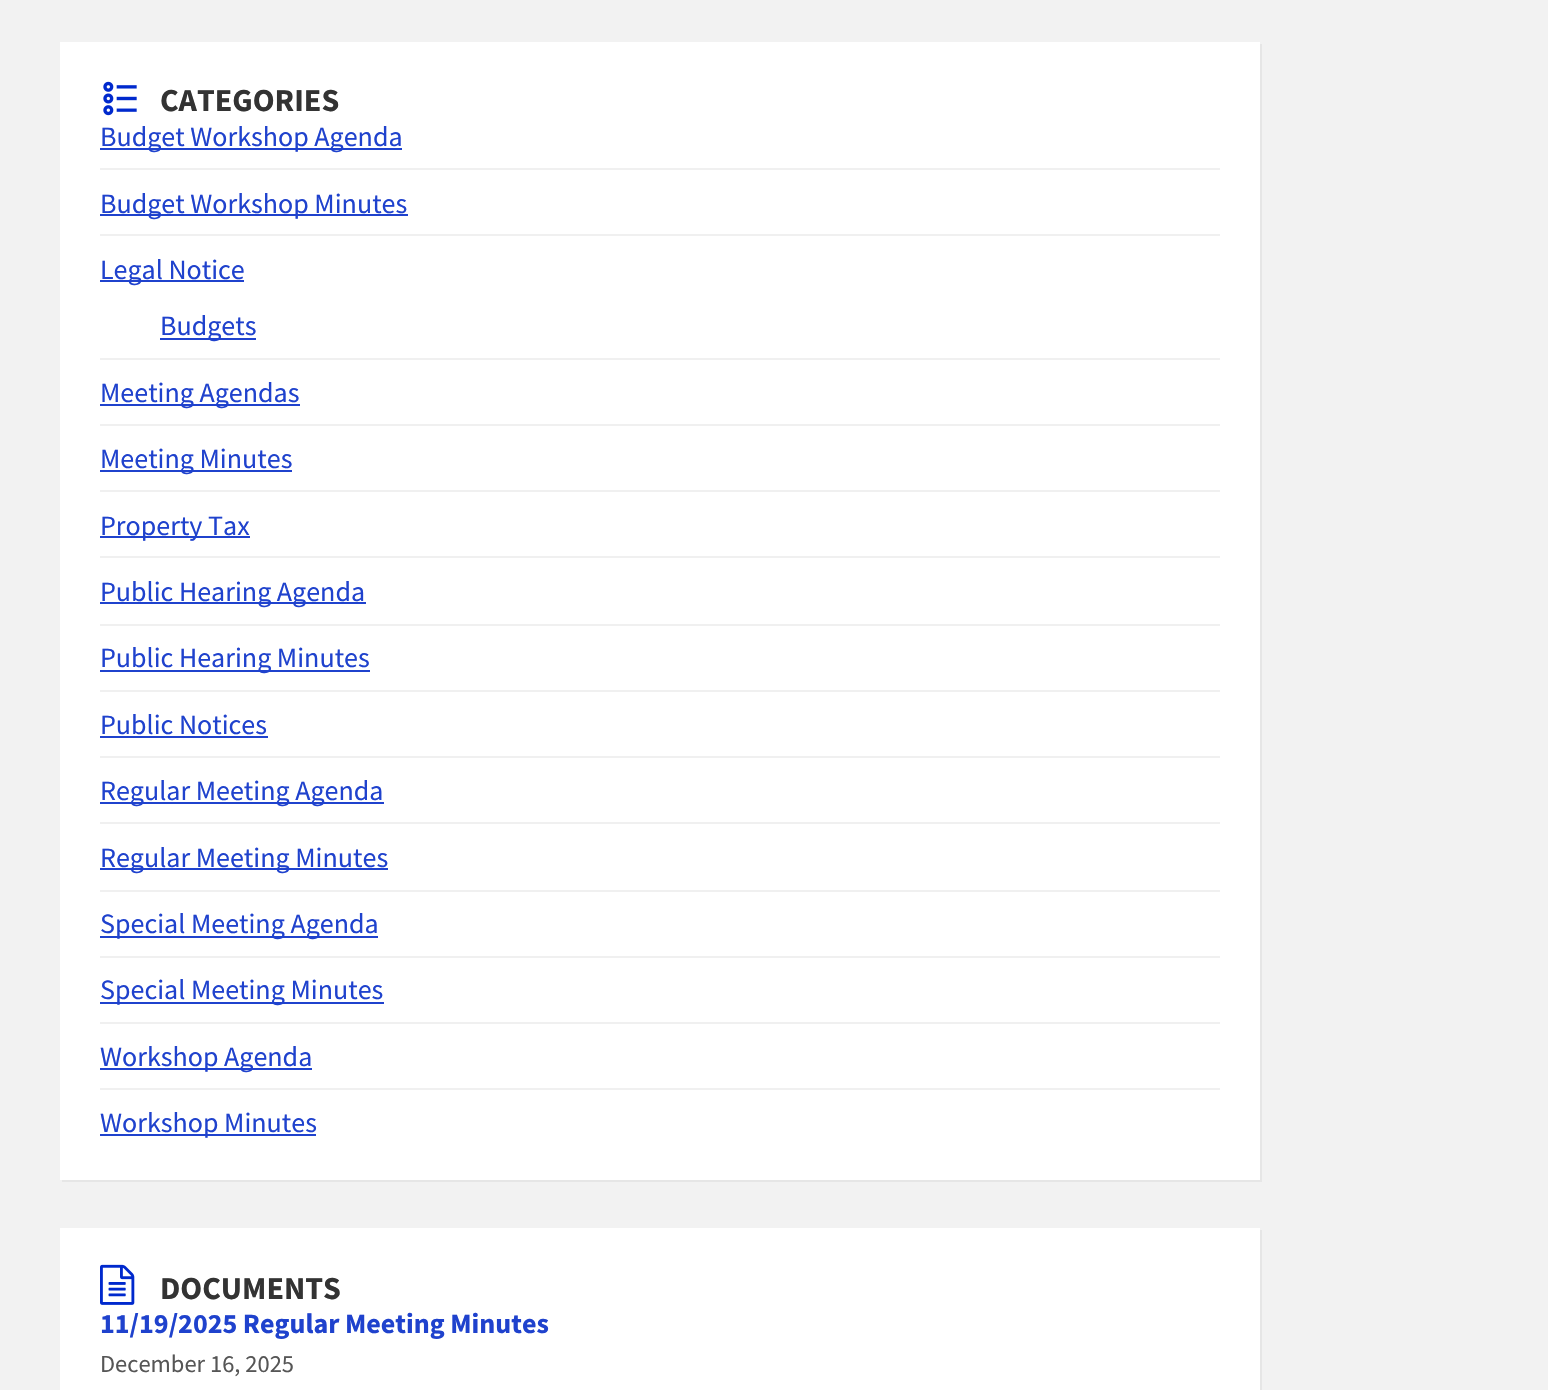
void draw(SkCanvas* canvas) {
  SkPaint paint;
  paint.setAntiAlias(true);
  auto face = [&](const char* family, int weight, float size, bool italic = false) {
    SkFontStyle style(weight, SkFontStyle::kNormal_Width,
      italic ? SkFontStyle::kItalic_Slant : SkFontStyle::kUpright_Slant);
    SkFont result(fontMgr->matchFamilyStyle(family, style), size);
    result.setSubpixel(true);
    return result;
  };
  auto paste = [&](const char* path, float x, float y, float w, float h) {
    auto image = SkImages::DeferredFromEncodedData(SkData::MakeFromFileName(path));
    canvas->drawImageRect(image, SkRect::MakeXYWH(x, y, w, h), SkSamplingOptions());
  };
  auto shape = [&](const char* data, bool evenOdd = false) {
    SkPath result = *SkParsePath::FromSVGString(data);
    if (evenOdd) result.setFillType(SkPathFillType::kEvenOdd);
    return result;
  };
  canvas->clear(0xfff2f2f2);
  paint.setColor(0xffe6e6e6);
  canvas->drawPath(shape("M62 1180V1182H1262V44H1260V1180Z"), paint);
  paint.setColor(0xffffffff);
  canvas->drawRect(SkRect::MakeXYWH(60, 42, 1200, 1138), paint);
  paste("img/1.png", 103, 81, 34, 35);
  {
    const struct { float x, y, w, h; SkColor color; } items[] = {
      {100, 148, 302, 2, 0xff1f42cd},
      {100, 168, 1120, 2, 0xfff0f0f0},
      {100, 214, 308, 2, 0xff1f42cd},
      {100, 234, 1120, 2, 0xfff0f0f0},
      {100, 280, 144, 2, 0xff1f42cd},
      {160, 338, 96, 2, 0xff1f42cd},
      {100, 358, 1120, 2, 0xfff0f0f0},
      {100, 404, 200, 2, 0xff1f42cd},
      {100, 424, 1120, 2, 0xfff0f0f0},
      {100, 470, 192, 2, 0xff1f42cd},
      {100, 490, 1120, 2, 0xfff0f0f0},
      {100, 536, 150, 2, 0xff1f42cd},
      {100, 556, 1120, 2, 0xfff0f0f0},
      {100, 602, 266, 2, 0xff1f42cd},
      {100, 624, 1120, 2, 0xfff0f0f0},
      {100, 670, 270, 2, 0xff1f42cd},
      {100, 690, 1120, 2, 0xfff0f0f0},
      {100, 736, 168, 2, 0xff1f42cd},
      {100, 756, 1120, 2, 0xfff0f0f0},
      {100, 802, 284, 2, 0xff1f42cd},
      {100, 822, 1120, 2, 0xfff0f0f0},
      {100, 868, 288, 2, 0xff1f42cd},
      {100, 890, 1120, 2, 0xfff0f0f0},
      {100, 936, 278, 2, 0xff1f42cd},
      {100, 956, 1120, 2, 0xfff0f0f0},
      {100, 1002, 284, 2, 0xff1f42cd},
      {100, 1022, 1120, 2, 0xfff0f0f0},
      {100, 1068, 212, 2, 0xff1f42cd},
      {100, 1088, 1120, 2, 0xfff0f0f0},
      {100, 1134, 216, 2, 0xff1f42cd},
    };
    for (auto [x, y, w, h, color] : items) {
      paint.setColor(color);
      canvas->drawRect(SkRect::MakeXYWH(x, y, w, h), paint);
    }
  }
  paint.setColor(0xffe6e6e6);
  canvas->drawPath(shape("M62 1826V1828H1262V1230H1260V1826Z"), paint);
  paint.setColor(0xffffffff);
  canvas->drawRect(SkRect::MakeXYWH(60, 1228, 1200, 162), paint);
  paste("img/2.png", 100, 1264, 35, 41);
  auto f0 = face("Source Sans Pro", 700, 32);
  paint.setColor(0xff333333);
  canvas->drawString("CATEGORIES", 160, 111, f0, paint);
  auto f1 = face("Source Sans Pro", 400, 28);
  paint.setColor(0xff1f42cd);
  {
    const struct { const char* s; float x, y; } items[] = {
      {"Budget Workshop Agenda", 100, 146},
      {"Budget Workshop Minutes", 100, 213},
      {"Legal Notice", 100, 279},
      {"Budgets", 160, 335},
      {"Meeting Agendas", 100, 402},
      {"Meeting Minutes", 100, 468},
      {"Property Tax", 100, 535},
      {"Public Hearing Agenda", 100, 601},
      {"Public Hearing Minutes", 100, 667},
      {"Public Notices", 100, 734},
      {"Regular Meeting Agenda", 100, 800},
      {"Regular Meeting Minutes", 100, 867},
      {"Special Meeting Agenda", 100, 933},
      {"Special Meeting Minutes", 100, 999},
      {"Workshop Agenda", 100, 1066},
      {"Workshop Minutes", 100, 1132},
    };
    for (auto [s, x, y] : items) {
      canvas->drawString(s, x, y, f1, paint);
    }
  }
  paint.setColor(0xff333333);
  canvas->drawString("DOCUMENTS", 160, 1299, f0, paint);
  auto f2 = face("Source Sans Pro", 700, 28);
  paint.setColor(0xff1f42cd);
  canvas->drawString("11/19/2025 Regular Meeting Minutes", 100, 1333, f2, paint);
  auto f3 = face("Source Sans Pro", 400, 24.5f);
  paint.setColor(0xff565656);
  canvas->drawString("December 16, 2025", 100, 1372, f3, paint);
}
